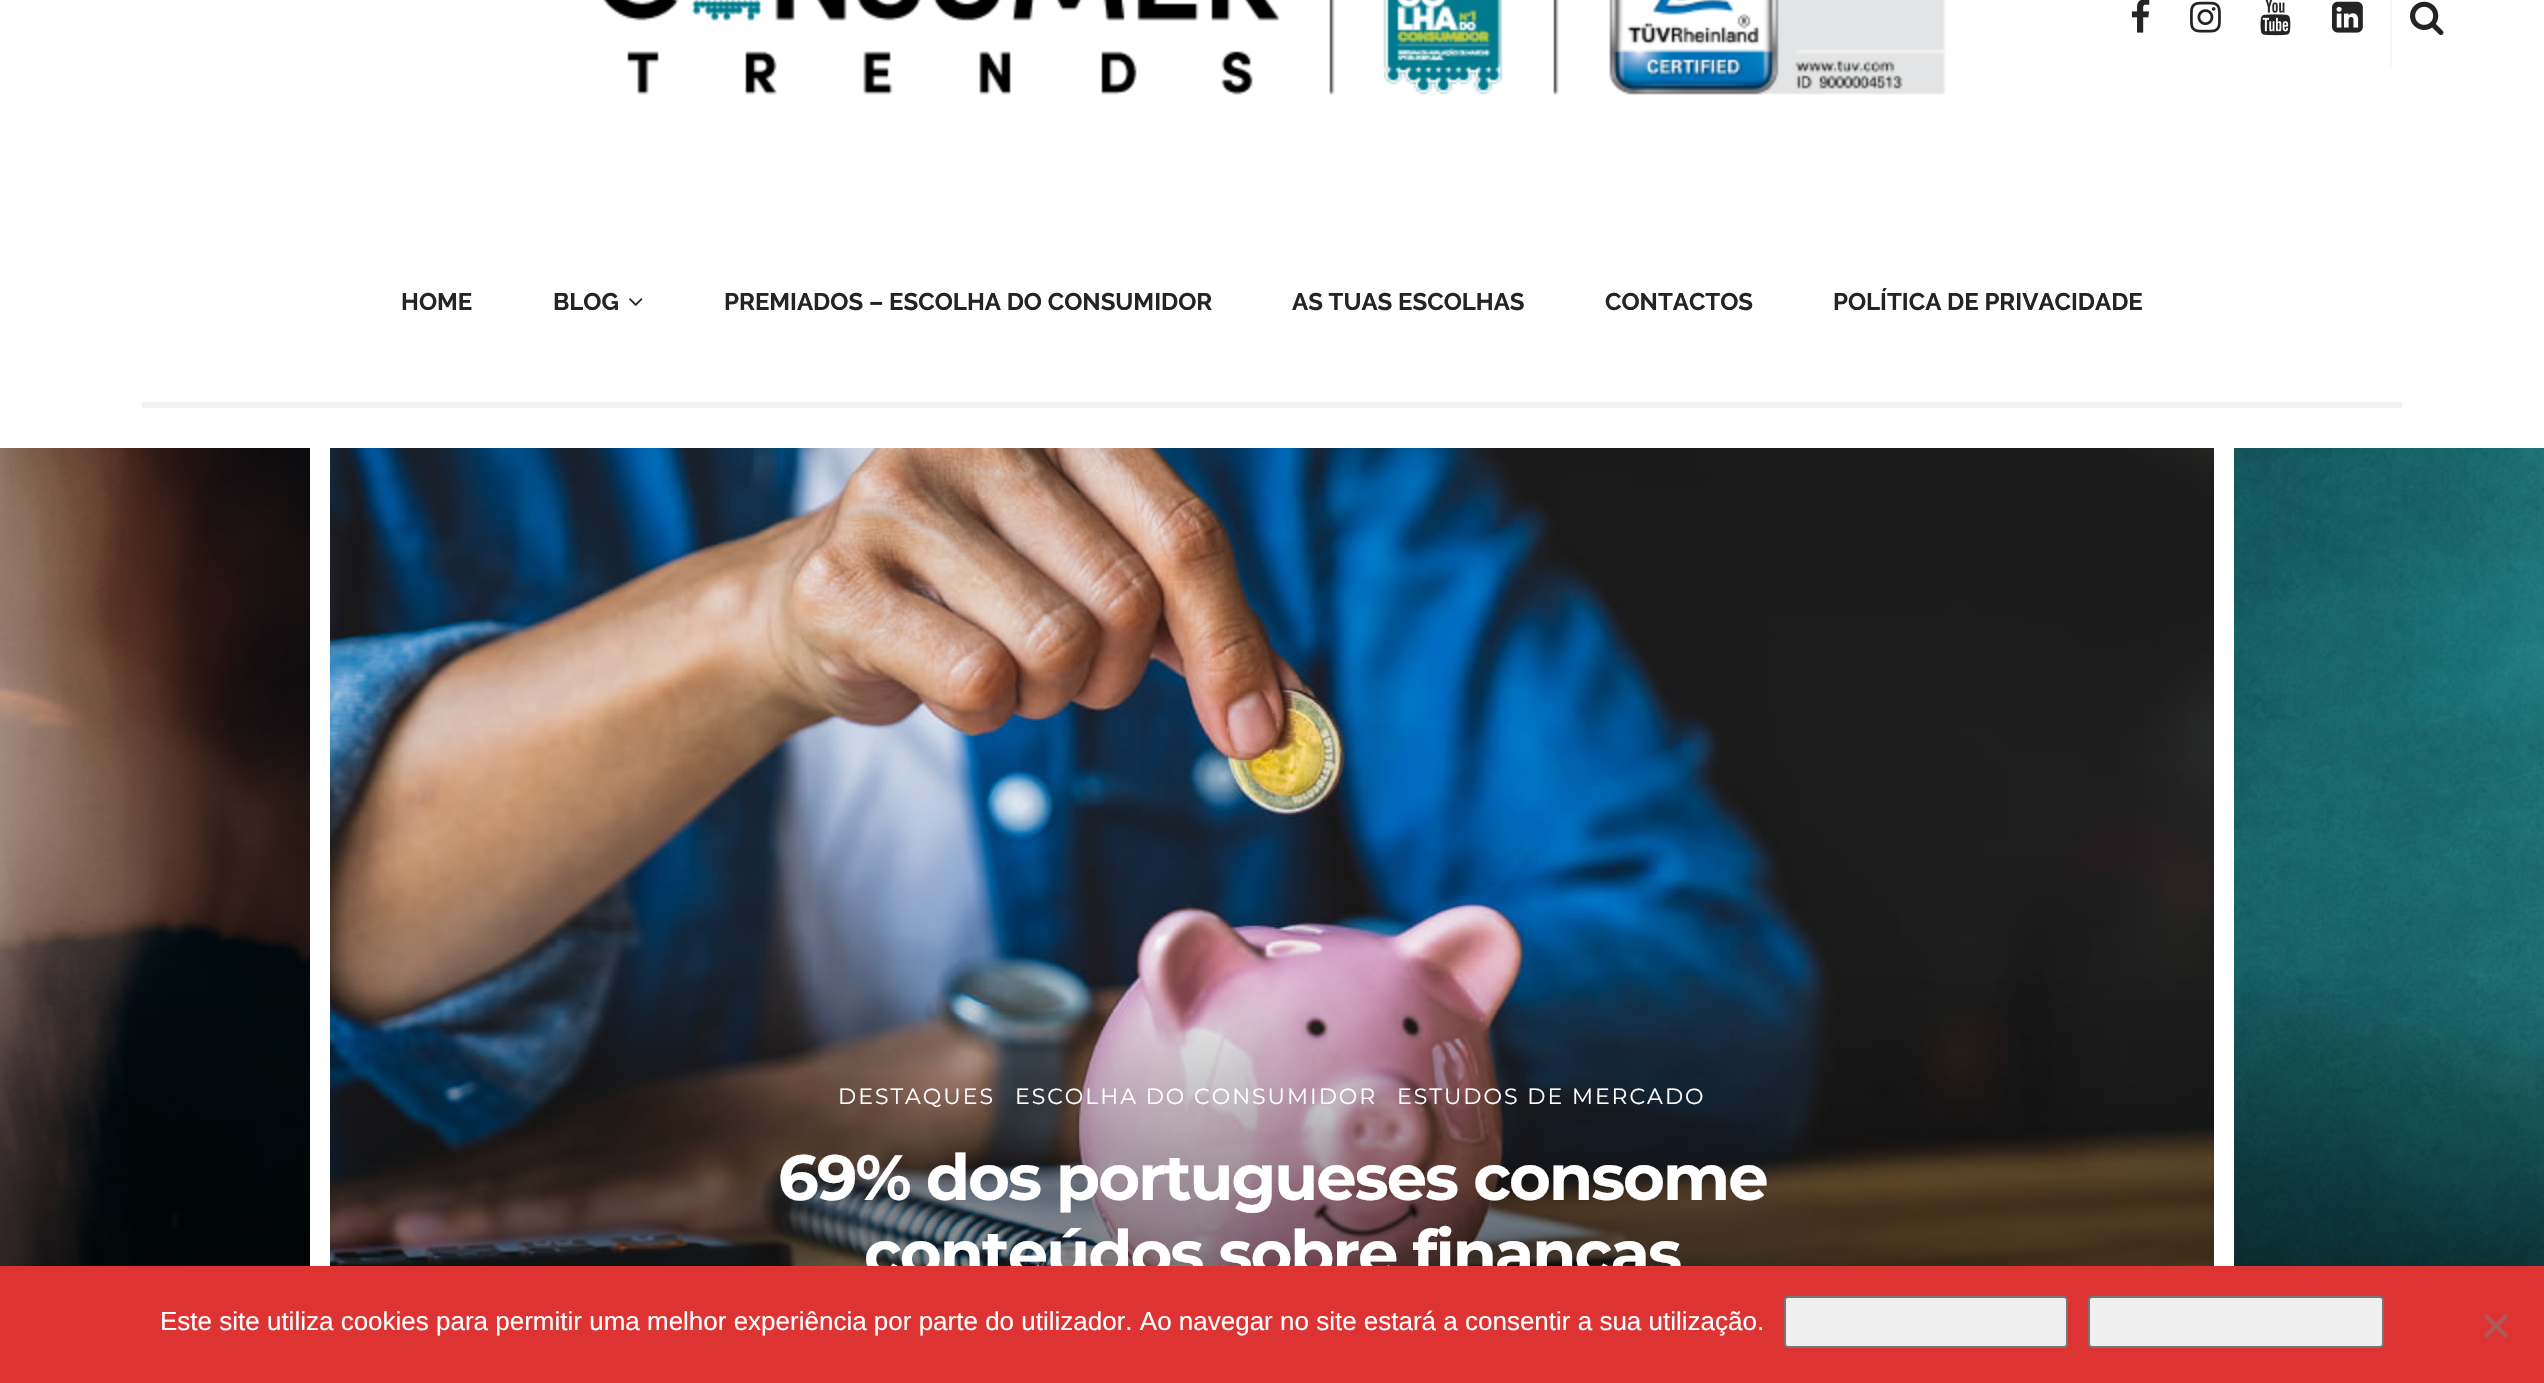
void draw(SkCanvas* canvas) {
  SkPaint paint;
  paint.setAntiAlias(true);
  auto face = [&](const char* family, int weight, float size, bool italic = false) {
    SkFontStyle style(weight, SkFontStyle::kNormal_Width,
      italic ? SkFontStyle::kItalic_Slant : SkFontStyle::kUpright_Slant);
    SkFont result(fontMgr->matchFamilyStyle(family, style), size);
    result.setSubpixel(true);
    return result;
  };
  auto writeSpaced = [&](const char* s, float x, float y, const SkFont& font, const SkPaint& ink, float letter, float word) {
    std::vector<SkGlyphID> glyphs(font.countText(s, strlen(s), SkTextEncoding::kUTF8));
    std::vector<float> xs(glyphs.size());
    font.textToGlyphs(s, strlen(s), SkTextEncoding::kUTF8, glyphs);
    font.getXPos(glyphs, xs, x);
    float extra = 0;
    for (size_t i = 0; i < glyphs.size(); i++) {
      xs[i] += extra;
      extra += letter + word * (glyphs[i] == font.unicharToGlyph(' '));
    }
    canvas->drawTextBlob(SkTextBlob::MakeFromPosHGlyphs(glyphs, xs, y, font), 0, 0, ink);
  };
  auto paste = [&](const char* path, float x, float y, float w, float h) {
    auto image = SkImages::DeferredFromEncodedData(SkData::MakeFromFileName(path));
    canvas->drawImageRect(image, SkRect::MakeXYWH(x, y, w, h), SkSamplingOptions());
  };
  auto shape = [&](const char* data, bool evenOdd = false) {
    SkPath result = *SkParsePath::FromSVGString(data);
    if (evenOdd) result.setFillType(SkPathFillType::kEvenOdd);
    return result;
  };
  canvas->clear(0xffffffff);
  paste("img/1.png", 603, 0, 1343, 95);
  paste("img/2.png", 2131, 0, 19, 33);
  paste("img/3.png", 2190, 1, 31, 32);
  paste("img/4.png", 2260, 0, 31, 36);
  paste("img/5.png", 2332, 1, 31, 32);
  paint.setColor(0xfff7f7f7);
  canvas->drawRect(SkRect::MakeXYWH(2390, 0, 2, 70), paint);
  paste("img/6.png", 2410, 1, 34, 35);
  paint.setColor(0xfff2f2f2);
  canvas->drawRect(SkRect::MakeXYWH(142, 402, 2260, 6), paint);
  paste("img/7.png", 629, 298, 14, 8);
  paste("img/8.png", 0, 448, 310, 818);
  paste("img/9.png", 330, 448, 1884, 818);
  paste("img/10.png", 2234, 448, 310, 818);
  auto f0 = face("Raleway", 700, 24);
  paint.setColor(0xff242424);
  {
    const struct { const char* s; float x, y; } items[] = {
      {"HOME", 401, 310},
      {"BLOG", 553, 310},
      {"PREMIADOS – ESCOLHA DO CONSUMIDOR", 724, 310},
      {"AS TUAS ESCOLHAS", 1292, 310},
      {"CONTACTOS", 1605, 310},
      {"POLÍTICA DE PRIVACIDADE", 1833, 310},
    };
    for (auto [s, x, y] : items) {
      canvas->drawString(s, x, y, f0, paint);
    }
  }
  auto f1 = face("Montserrat", 400, 22);
  paint.setColor(0xffffffff);
  {
    const struct { const char* s; float x, y; } items[] = {
      {"DESTAQUES", 838, 1104},
      {"ESCOLHA DO CONSUMIDOR", 1015, 1104},
      {"ESTUDOS DE MERCADO", 1397, 1104},
    };
    for (auto [s, x, y] : items) {
      writeSpaced(s, x, y, f1, paint, 2, 0);
    }
  }
  auto f2 = face("Montserrat", 700, 64);
  writeSpaced("69% dos portugueses consome", 778, 1200, f2, paint, -2, 0);
  writeSpaced("conteúdos sobre finanças", 864, 1276, f2, paint, -2, 0);
  paint.setColor(0xffdd3333);
  canvas->drawRect(SkRect::MakeXYWH(0, 1266, 2544, 117), paint);
  auto f3 = face("Liberation Sans", 400, 26);
  paint.setColor(0xffffffff);
  canvas->drawString("Este site utiliza cookies para permitir uma melhor experiência por parte do utilizador. Ao navegar no site estará a consentir a sua utilização.", 160, 1330, f3, paint);
  paint.setColor(0xffefefef);
  canvas->drawRoundRect(SkRect::MakeXYWH(1785, 1297, 282, 50), 3, 3, paint);
  paint.setStroke(true);
  paint.setStrokeWidth(2);
  paint.setColor(0xff767676);
  canvas->drawRoundRect(SkRect::MakeXYWH(1785, 1297, 282, 50), 3, 3, paint);
  paint.setStroke(false);
  paint.setColor(0xffefefef);
  canvas->drawRoundRect(SkRect::MakeXYWH(2089, 1297, 294, 50), 3, 3, paint);
  paint.setStroke(true);
  paint.setColor(0xff767676);
  canvas->drawRoundRect(SkRect::MakeXYWH(2089, 1297, 294, 50), 3, 3, paint);
  paint.setStroke(false);
  paint.setColor(0xffaf5a5a);
  canvas->drawPath(shape("M2505 1314L2508 1317L2487 1338L2484 1335Z"), paint);
  canvas->drawPath(shape("M2484 1317L2487 1314L2508 1335L2505 1338Z"), paint);
}
